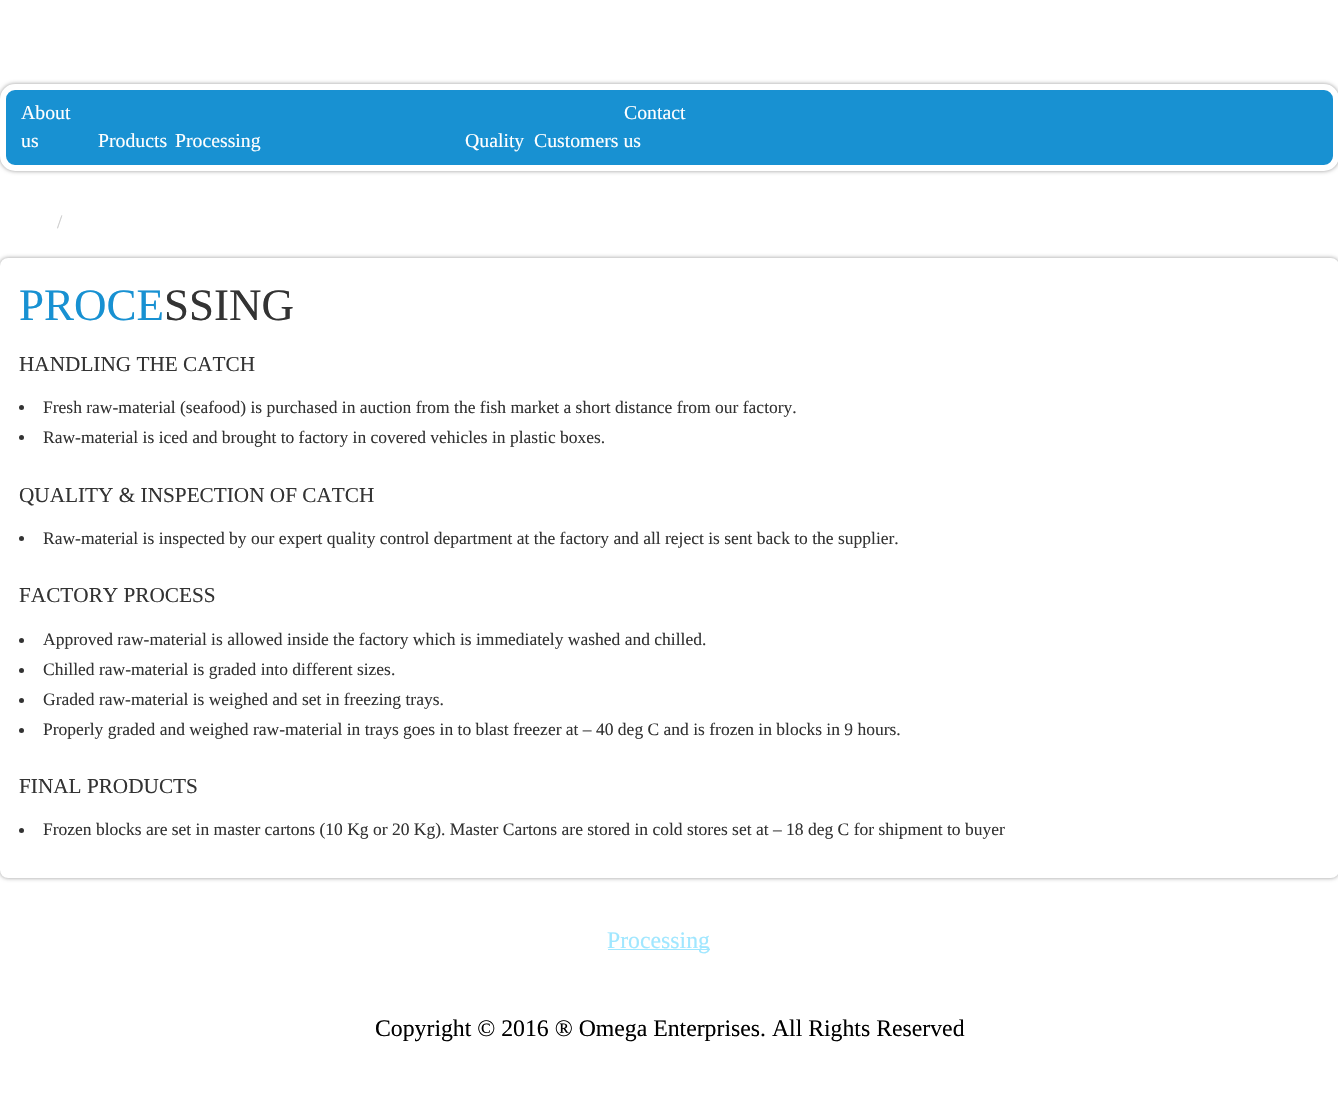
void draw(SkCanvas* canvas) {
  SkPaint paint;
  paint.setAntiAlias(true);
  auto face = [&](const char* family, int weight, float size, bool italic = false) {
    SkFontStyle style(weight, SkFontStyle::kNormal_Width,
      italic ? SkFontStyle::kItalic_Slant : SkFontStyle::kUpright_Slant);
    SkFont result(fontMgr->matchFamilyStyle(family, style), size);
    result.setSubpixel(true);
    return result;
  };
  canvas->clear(0xffffffff);
  paint.setColor(0x66000000);
  paint.setMaskFilter(SkMaskFilter::MakeBlur(kNormal_SkBlurStyle, 2));
  canvas->drawRoundRect(SkRect::MakeXYWH(0, 84, 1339, 87), 15, 15, paint);
  paint.setMaskFilter(nullptr);
  paint.setColor(0xff1891d2);
  canvas->drawRoundRect(SkRect::MakeXYWH(3, 87, 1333, 81), 12, 12, paint);
  paint.setStroke(true);
  paint.setStrokeWidth(6);
  paint.setColor(0xffffffff);
  canvas->drawRoundRect(SkRect::MakeXYWH(3, 87, 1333, 81), 12, 12, paint);
  paint.setStroke(false);
  paint.setColor(0x66000000);
  paint.setMaskFilter(SkMaskFilter::MakeBlur(kNormal_SkBlurStyle, 2));
  canvas->drawRoundRect(SkRect::MakeXYWH(0, 258, 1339, 620), 8, 8, paint);
  paint.setMaskFilter(nullptr);
  paint.setColor(0xffffffff);
  canvas->drawRoundRect(SkRect::MakeXYWH(0, 258, 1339, 620), 8, 8, paint);
  paint.setColor(0xff333333);
  canvas->drawCircle(21.5f, 407.5f, 2.5f, paint);
  canvas->drawCircle(21.5f, 437.5f, 2.5f, paint);
  canvas->drawCircle(21.5f, 538.5f, 2.5f, paint);
  canvas->drawCircle(21.5f, 640.5f, 2.5f, paint);
  canvas->drawCircle(21.5f, 670.5f, 2.5f, paint);
  canvas->drawCircle(21.5f, 700.5f, 2.5f, paint);
  canvas->drawCircle(21.5f, 730.5f, 2.5f, paint);
  canvas->drawCircle(21.5f, 830.5f, 2.5f, paint);
  paint.setColor(0xffa0e7ff);
  canvas->drawRect(SkRect::MakeXYWH(608, 949, 102, 1), paint);
  auto f0 = face("Liberation Serif", 400, 19.75f);
  paint.setColor(0xffffffff);
  {
    const struct { const char* s; float x, y; } items[] = {
      {"About", 21, 119},
      {"us", 21, 147},
      {"Contact", 624, 119},
      {"Products", 98, 147},
      {"Processing", 175, 147},
      {"Quality", 465, 147},
      {"Customers us", 534, 147},
    };
    for (auto [s, x, y] : items) {
      canvas->drawString(s, x, y, f0, paint);
    }
  }
  auto f1 = face("Liberation Serif", 400, 19);
  paint.setColor(0xffcccccc);
  canvas->drawString("/", 57, 228, f1, paint);
  auto f2 = face("Liberation Serif", 400, 45);
  paint.setColor(0xff1891d2);
  canvas->drawString("PROCE", 19, 320, f2, paint);
  paint.setColor(0xff333333);
  canvas->drawString("SSING", 164, 320, f2, paint);
  auto f3 = face("Liberation Serif", 400, 21.25f);
  canvas->drawString("HANDLING THE CATCH", 19, 371, f3, paint);
  auto f4 = face("Liberation Serif", 400, 17.5f);
  canvas->drawString("Fresh raw-material (seafood) is purchased in auction from the fish market a short distance from our factory.", 43, 413, f4, paint);
  canvas->drawString("Raw-material is iced and brought to factory in covered vehicles in plastic boxes.", 43, 443, f4, paint);
  canvas->drawString("QUALITY & INSPECTION OF CATCH", 19, 502, f3, paint);
  canvas->drawString("Raw-material is inspected by our expert quality control department at the factory and all reject is sent back to the supplier.", 43, 544, f4, paint);
  canvas->drawString("FACTORY PROCESS", 19, 602, f3, paint);
  {
    const struct { const char* s; float x, y; } items[] = {
      {"Approved raw-material is allowed inside the factory which is immediately washed and chilled.", 43, 645},
      {"Chilled raw-material is graded into different sizes.", 43, 675},
      {"Graded raw-material is weighed and set in freezing trays.", 43, 705},
      {"Properly graded and weighed raw-material in trays goes in to blast freezer at – 40 deg C and is frozen in blocks in 9 hours.", 43, 735},
    };
    for (auto [s, x, y] : items) {
      canvas->drawString(s, x, y, f4, paint);
    }
  }
  canvas->drawString("FINAL PRODUCTS", 19, 793, f3, paint);
  canvas->drawString("Frozen blocks are set in master cartons (10 Kg or 20 Kg). Master Cartons are stored in cold stores set at – 18 deg C for shipment to buyer", 43, 835, f4, paint);
  auto f5 = face("Liberation Serif", 400, 23.75f);
  paint.setColor(0xffa0e7ff);
  canvas->drawString("Processing", 607, 948, f5, paint);
  paint.setColor(0xff000000);
  canvas->drawString("Copyright © 2016 ® Omega Enterprises. All Rights Reserved", 375, 1036, f5, paint);
}
